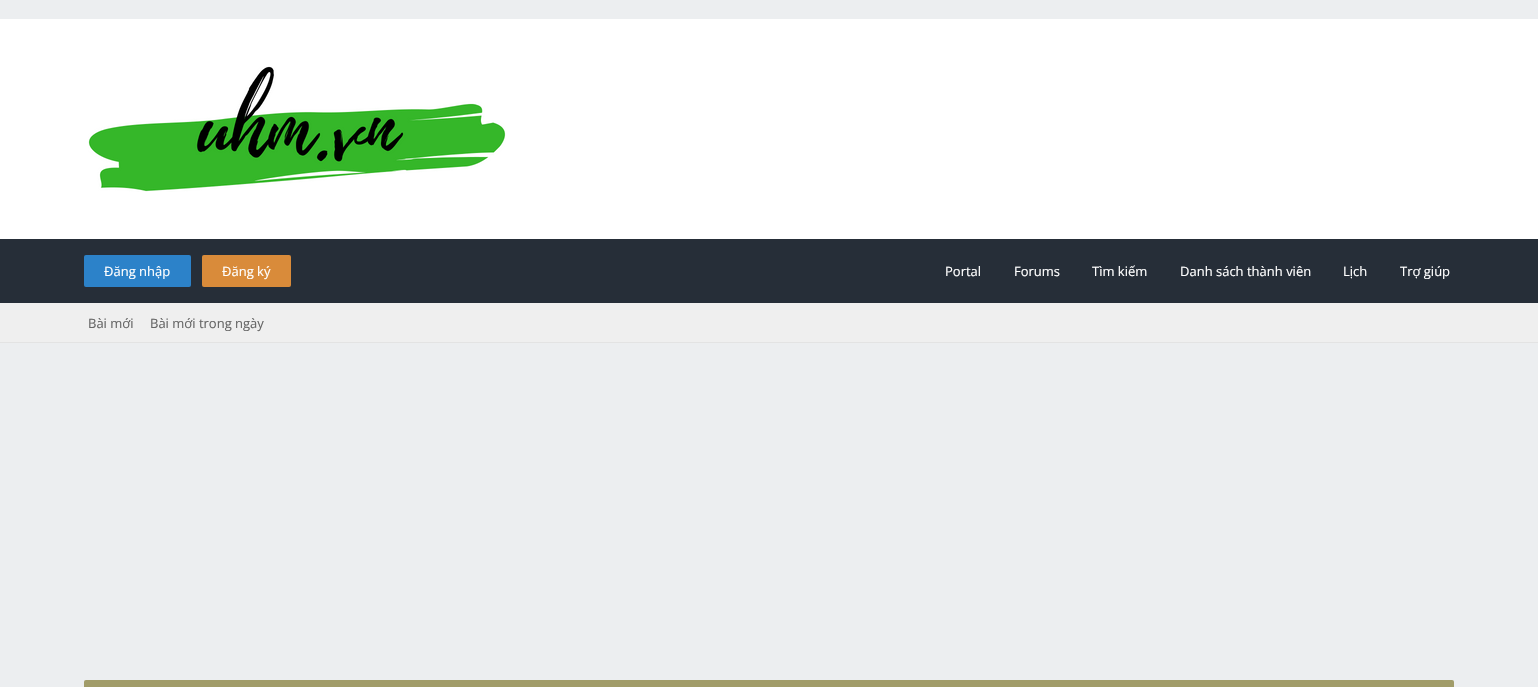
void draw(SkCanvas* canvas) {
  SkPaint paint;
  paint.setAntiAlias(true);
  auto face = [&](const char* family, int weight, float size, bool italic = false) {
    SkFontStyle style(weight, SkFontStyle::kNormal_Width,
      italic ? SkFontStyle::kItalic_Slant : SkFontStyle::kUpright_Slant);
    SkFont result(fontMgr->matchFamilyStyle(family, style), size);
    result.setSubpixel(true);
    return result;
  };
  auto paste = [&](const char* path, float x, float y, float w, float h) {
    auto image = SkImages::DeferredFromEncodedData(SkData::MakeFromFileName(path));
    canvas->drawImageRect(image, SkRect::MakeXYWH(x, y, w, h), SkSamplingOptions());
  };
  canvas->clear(0xffeceef0);
  paint.setColor(0xffffffff);
  canvas->drawRect(SkRect::MakeXYWH(0, 19, 1538, 220), paint);
  paste("img/1.png", 88, 66, 418, 126);
  paint.setColor(0xff262e38);
  canvas->drawRect(SkRect::MakeXYWH(0, 239, 1538, 64), paint);
  paint.setColor(0xff2c82c9);
  canvas->drawRoundRect(SkRect::MakeXYWH(84, 255, 107, 32), 2, 2, paint);
  paint.setColor(0xffd98b3a);
  canvas->drawRoundRect(SkRect::MakeXYWH(202, 255, 89, 32), 2, 2, paint);
  paint.setColor(0xffefefef);
  canvas->drawRect(SkRect::MakeXYWH(0, 303, 1538, 39), paint);
  paint.setColor(0xffe3e3e3);
  canvas->drawRect(SkRect::MakeXYWH(0, 342, 1538, 1), paint);
  paint.setColor(0xffa19c69);
  canvas->drawRoundRect(SkRect::MakeXYWH(84, 680, 1370, 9), 2, 2, paint);
  auto f0 = face("Open Sans", 400, 13);
  paint.setColor(0xffffffff);
  {
    const struct { const char* s; float x, y; } items[] = {
      {"Đăng nhập", 104, 276},
      {"Đăng ký", 222, 276},
      {"Portal", 945, 276},
      {"Forums", 1014, 276},
      {"Tìm kiếm", 1092, 276},
      {"Danh sách thành viên", 1180, 276},
      {"Lịch", 1343, 276},
      {"Trợ giúp", 1400, 276},
    };
    for (auto [s, x, y] : items) {
      canvas->drawString(s, x, y, f0, paint);
    }
  }
  paint.setColor(0xff666666);
  canvas->drawString("Bài mới", 88, 328, f0, paint);
  canvas->drawString("Bài mới trong ngày", 150, 328, f0, paint);
}
